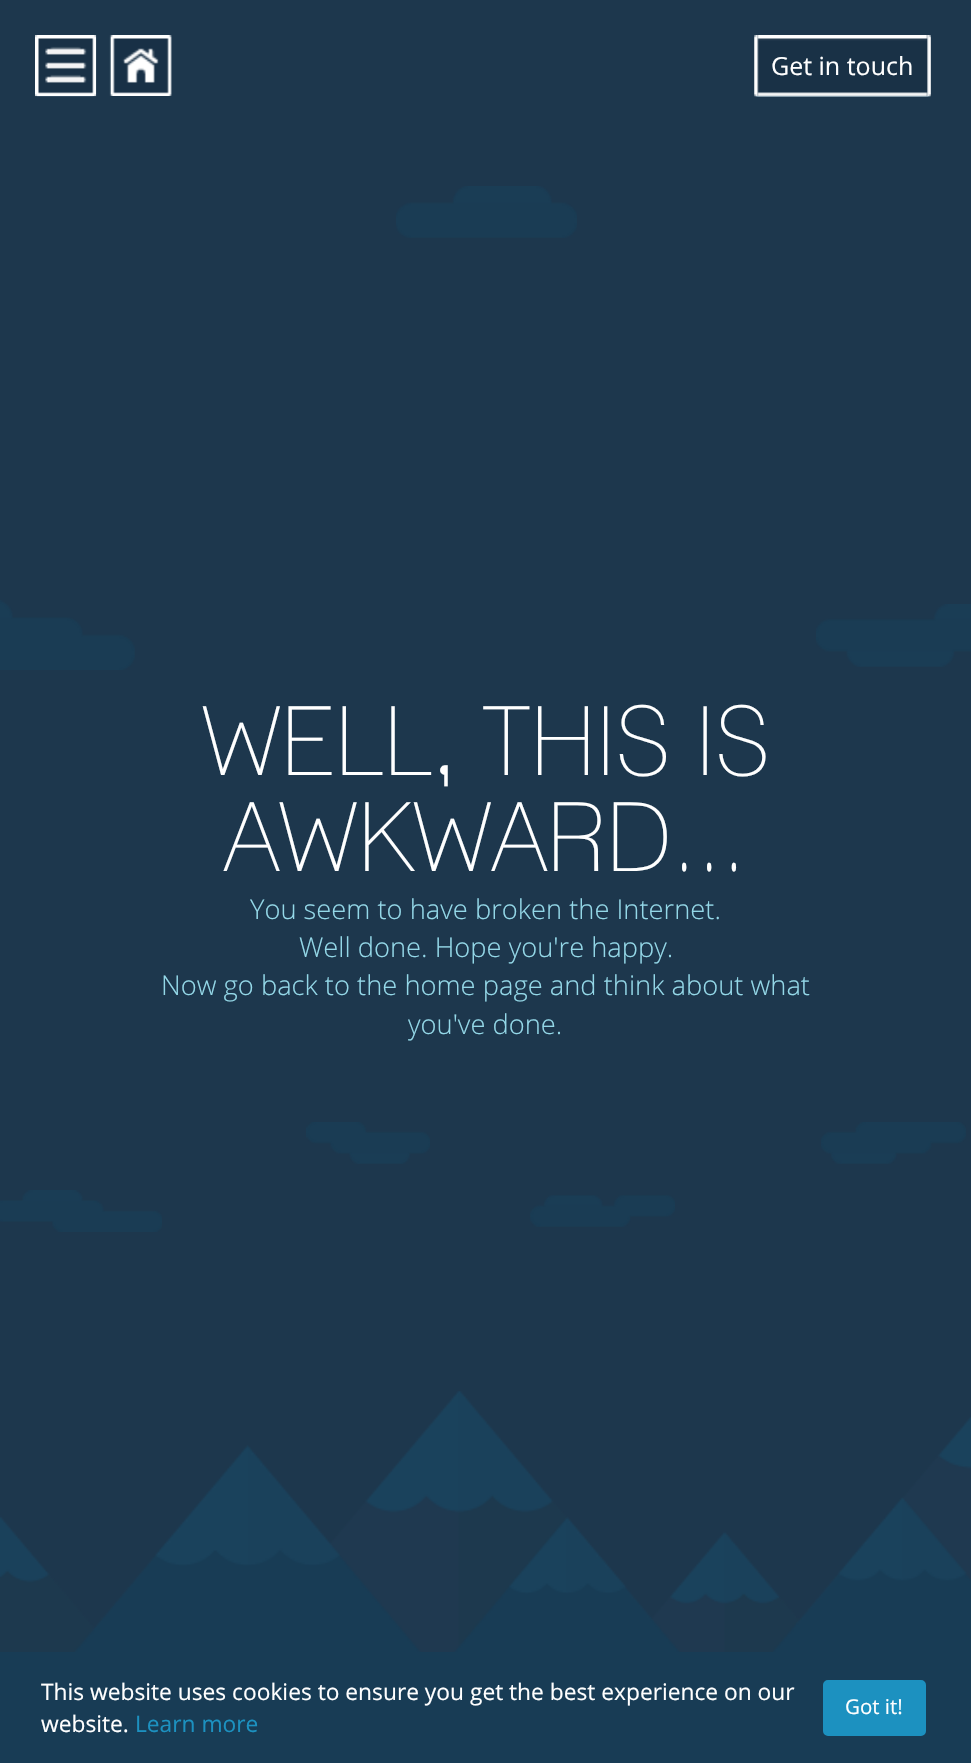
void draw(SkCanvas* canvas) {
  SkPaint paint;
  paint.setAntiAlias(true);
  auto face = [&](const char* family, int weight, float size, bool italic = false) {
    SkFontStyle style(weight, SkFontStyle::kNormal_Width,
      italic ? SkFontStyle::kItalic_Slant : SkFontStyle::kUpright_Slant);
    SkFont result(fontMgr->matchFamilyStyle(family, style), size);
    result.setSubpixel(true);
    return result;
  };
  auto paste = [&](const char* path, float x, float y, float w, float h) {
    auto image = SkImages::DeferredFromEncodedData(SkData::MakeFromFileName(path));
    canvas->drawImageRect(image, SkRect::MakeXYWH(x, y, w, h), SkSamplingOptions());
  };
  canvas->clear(0xff1d374d);
  paste("img/2.png", 37, 35, 56, 62);
  paste("img/1.png", 35, 35, 62, 62);
  paint.setColor(0xff183046);
  canvas->drawRect(SkRect::MakeXYWH(112, 35, 56, 60), paint);
  paste("img/3.png", 109, 35, 63, 61);
  paste("img/5.png", 755, 35, 175, 62);
  paste("img/4.png", 754, 35, 5, 62);
  paste("img/7.png", 927, 35, 4, 62);
  paste("img/6.png", 757, 35, 171, 62);
  paste("img/8.png", 396, 186, 181, 52);
  paste("img/9.png", 0, 600, 135, 70);
  paste("img/10.png", 816, 604, 155, 63);
  paste("img/11.png", 306, 1122, 124, 42);
  paste("img/12.png", 821, 1122, 145, 42);
  paste("img/13.png", 0, 1190, 162, 42);
  paste("img/14.png", 530, 1195, 145, 32);
  paste("img/15.png", 0, 1391, 971, 261);
  paint.setColor(0xff183c55);
  canvas->drawRect(SkRect::MakeXYWH(0, 1652, 971, 111), paint);
  paint.setColor(0xff1c91c0);
  canvas->drawRoundRect(SkRect::MakeXYWH(824, 1681, 101, 54), 4, 4, paint);
  paint.setStroke(true);
  paint.setStrokeWidth(2);
  canvas->drawRoundRect(SkRect::MakeXYWH(824, 1681, 101, 54), 4, 4, paint);
  auto f0 = face("Open Sans", 400, 25);
  paint.setStroke(false);
  paint.setColor(0xffffffff);
  canvas->drawString("Get in touch", 771, 75, f0, paint);
  auto f1 = face("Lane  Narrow", 400, 95.5f);
  canvas->drawString("WELL, THIS IS", 202, 775, f1, paint);
  canvas->drawString("AWKWARD...", 224, 871, f1, paint);
  auto f2 = face("Open Sans", 300, 27.3f);
  paint.setColor(0xff94d8e8);
  {
    const struct { const char* s; float x, y; } items[] = {
      {"You seem to have broken the Internet.", 250, 919},
      {"Well done. Hope you're happy.", 299, 957},
      {"Now go back to the home page and think about what", 161, 995},
      {"you've done.", 408, 1034},
    };
    for (auto [s, x, y] : items) {
      canvas->drawString(s, x, y, f2, paint);
    }
  }
  auto f3 = face("Open Sans", 400, 22.75f);
  paint.setColor(0xffffffff);
  canvas->drawString("This website uses cookies to ensure you get the best experience on our", 41, 1700, f3, paint);
  canvas->drawString("website.", 41, 1732, f3, paint);
  paint.setColor(0xff1c91c0);
  canvas->drawString("Learn more", 135, 1732, f3, paint);
  auto f4 = face("Open Sans", 400, 20.5f);
  paint.setColor(0xffffffff);
  canvas->drawString("Got it!", 845, 1714, f4, paint);
}
